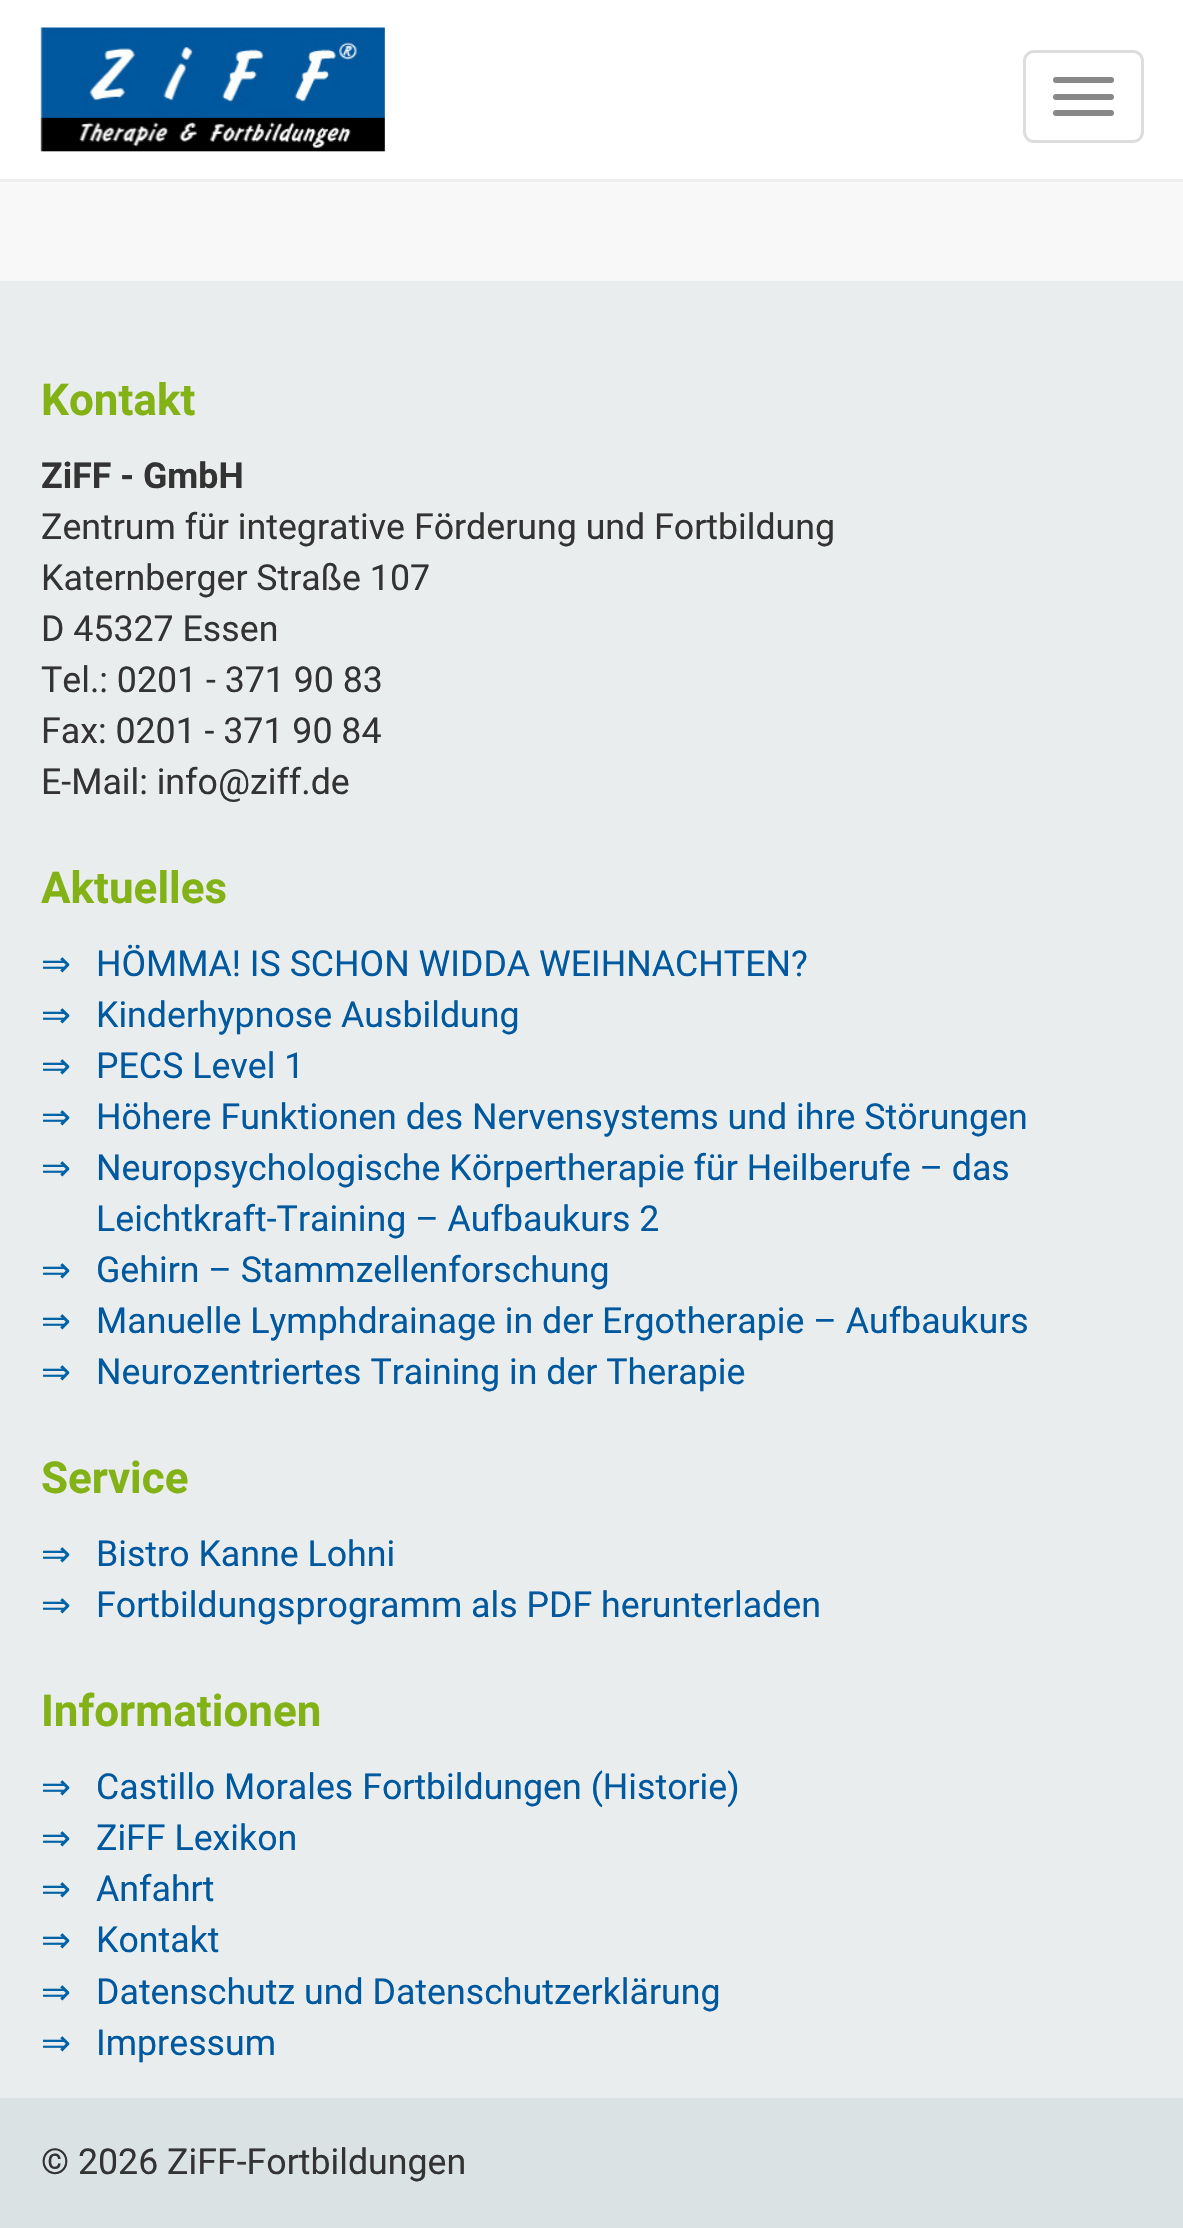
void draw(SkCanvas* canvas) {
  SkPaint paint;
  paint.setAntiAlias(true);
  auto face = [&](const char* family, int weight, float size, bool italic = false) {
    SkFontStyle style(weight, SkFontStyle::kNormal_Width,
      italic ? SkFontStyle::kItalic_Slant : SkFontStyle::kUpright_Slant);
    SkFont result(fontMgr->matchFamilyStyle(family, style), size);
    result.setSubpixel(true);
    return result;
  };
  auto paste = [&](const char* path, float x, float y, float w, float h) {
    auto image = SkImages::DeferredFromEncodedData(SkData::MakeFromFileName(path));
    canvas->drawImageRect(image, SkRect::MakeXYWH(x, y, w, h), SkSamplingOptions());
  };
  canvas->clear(0xfff8f8f8);
  paint.setColor(0xffffffff);
  canvas->drawRect(SkRect::MakeXYWH(0, 0, 1183, 179), paint);
  paint.setColor(0xffeeeeee);
  canvas->drawRect(SkRect::MakeXYWH(0, 179, 1183, 3), paint);
  paste("img/1.png", 40, 27, 345, 125);
  paint.setStroke(true);
  paint.setStrokeWidth(3);
  paint.setColor(0xffdddddd);
  canvas->drawRoundRect(SkRect::MakeXYWH(1024.5f, 51.5f, 118, 90), 9.5f, 9.5f, paint);
  paint.setStroke(false);
  paint.setColor(0xff888888);
  canvas->drawRoundRect(SkRect::MakeXYWH(1053, 77, 61, 6), 3, 3, paint);
  canvas->drawRoundRect(SkRect::MakeXYWH(1053, 94, 61, 6), 3, 3, paint);
  canvas->drawRoundRect(SkRect::MakeXYWH(1053, 110, 61, 6), 3, 3, paint);
  paint.setColor(0xffeaedee);
  canvas->drawRect(SkRect::MakeXYWH(0, 281, 1183, 1817), paint);
  paint.setColor(0xffdbe2e4);
  canvas->drawRect(SkRect::MakeXYWH(0, 2098, 1183, 130), paint);
  auto f0 = face("Roboto", 700, 44);
  paint.setColor(0xff83b217);
  canvas->drawString("Kontakt", 41, 415, f0, paint);
  auto f1 = face("Roboto", 700, 35.75f);
  paint.setColor(0xff333333);
  canvas->drawString("ZiFF - GmbH", 41, 488, f1, paint);
  auto f2 = face("Roboto", 400, 35.75f);
  {
    const struct { const char* s; float x, y; } items[] = {
      {"Zentrum für integrative Förderung und Fortbildung", 41, 539},
      {"Katernberger Straße 107", 41, 590},
      {"D 45327 Essen", 41, 641},
      {"Tel.: 0201 - 371 90 83", 41, 692},
      {"Fax: 0201 - 371 90 84", 41, 743},
      {"E-Mail: info@ziff.de", 41, 794},
    };
    for (auto [s, x, y] : items) {
      canvas->drawString(s, x, y, f2, paint);
    }
  }
  paint.setColor(0xff83b217);
  canvas->drawString("Aktuelles", 41, 903, f0, paint);
  auto f3 = face("DejaVu Sans", 400, 35.75f);
  paint.setColor(0xff0062a7);
  canvas->drawString("⇒", 41, 976, f3, paint);
  paint.setColor(0xff00589f);
  canvas->drawString("HÖMMA! IS SCHON WIDDA WEIHNACHTEN?", 96, 976, f2, paint);
  paint.setColor(0xff0062a7);
  canvas->drawString("⇒", 41, 1027, f3, paint);
  paint.setColor(0xff00589f);
  canvas->drawString("Kinderhypnose Ausbildung", 96, 1027, f2, paint);
  paint.setColor(0xff0062a7);
  canvas->drawString("⇒", 41, 1078, f3, paint);
  paint.setColor(0xff00589f);
  canvas->drawString("PECS Level 1", 96, 1078, f2, paint);
  paint.setColor(0xff0062a7);
  canvas->drawString("⇒", 41, 1129, f3, paint);
  paint.setColor(0xff00589f);
  canvas->drawString("Höhere Funktionen des Nervensystems und ihre Störungen", 96, 1129, f2, paint);
  paint.setColor(0xff0062a7);
  canvas->drawString("⇒", 41, 1180, f3, paint);
  paint.setColor(0xff00589f);
  canvas->drawString("Neuropsychologische Körpertherapie für Heilberufe – das", 96, 1180, f2, paint);
  canvas->drawString("Leichtkraft-Training – Aufbaukurs 2", 96, 1231, f2, paint);
  paint.setColor(0xff0062a7);
  canvas->drawString("⇒", 41, 1282, f3, paint);
  paint.setColor(0xff00589f);
  canvas->drawString("Gehirn – Stammzellenforschung", 96, 1282, f2, paint);
  paint.setColor(0xff0062a7);
  canvas->drawString("⇒", 41, 1333, f3, paint);
  paint.setColor(0xff00589f);
  canvas->drawString("Manuelle Lymphdrainage in der Ergotherapie – Aufbaukurs", 96, 1333, f2, paint);
  paint.setColor(0xff0062a7);
  canvas->drawString("⇒", 41, 1384, f3, paint);
  paint.setColor(0xff00589f);
  canvas->drawString("Neurozentriertes Training in der Therapie", 96, 1384, f2, paint);
  paint.setColor(0xff83b217);
  canvas->drawString("Service", 41, 1493, f0, paint);
  paint.setColor(0xff0062a7);
  canvas->drawString("⇒", 41, 1566, f3, paint);
  paint.setColor(0xff00589f);
  canvas->drawString("Bistro Kanne Lohni", 96, 1566, f2, paint);
  paint.setColor(0xff0062a7);
  canvas->drawString("⇒", 41, 1617, f3, paint);
  paint.setColor(0xff00589f);
  canvas->drawString("Fortbildungsprogramm als PDF herunterladen", 96, 1617, f2, paint);
  paint.setColor(0xff83b217);
  canvas->drawString("Informationen", 41, 1726, f0, paint);
  paint.setColor(0xff0062a7);
  canvas->drawString("⇒", 41, 1799, f3, paint);
  paint.setColor(0xff00589f);
  canvas->drawString("Castillo Morales Fortbildungen (Historie)", 96, 1799, f2, paint);
  paint.setColor(0xff0062a7);
  canvas->drawString("⇒", 41, 1850, f3, paint);
  paint.setColor(0xff00589f);
  canvas->drawString("ZiFF Lexikon", 96, 1850, f2, paint);
  paint.setColor(0xff0062a7);
  canvas->drawString("⇒", 41, 1901, f3, paint);
  paint.setColor(0xff00589f);
  canvas->drawString("Anfahrt", 96, 1901, f2, paint);
  paint.setColor(0xff0062a7);
  canvas->drawString("⇒", 41, 1952, f3, paint);
  paint.setColor(0xff00589f);
  canvas->drawString("Kontakt", 96, 1952, f2, paint);
  paint.setColor(0xff0062a7);
  canvas->drawString("⇒", 41, 2004, f3, paint);
  paint.setColor(0xff00589f);
  canvas->drawString("Datenschutz und Datenschutzerklärung", 96, 2004, f2, paint);
  paint.setColor(0xff0062a7);
  canvas->drawString("⇒", 41, 2055, f3, paint);
  paint.setColor(0xff00589f);
  canvas->drawString("Impressum", 96, 2055, f2, paint);
  paint.setColor(0xff333333);
  canvas->drawString("© 2026 ZiFF-Fortbildungen", 41, 2174, f2, paint);
}
